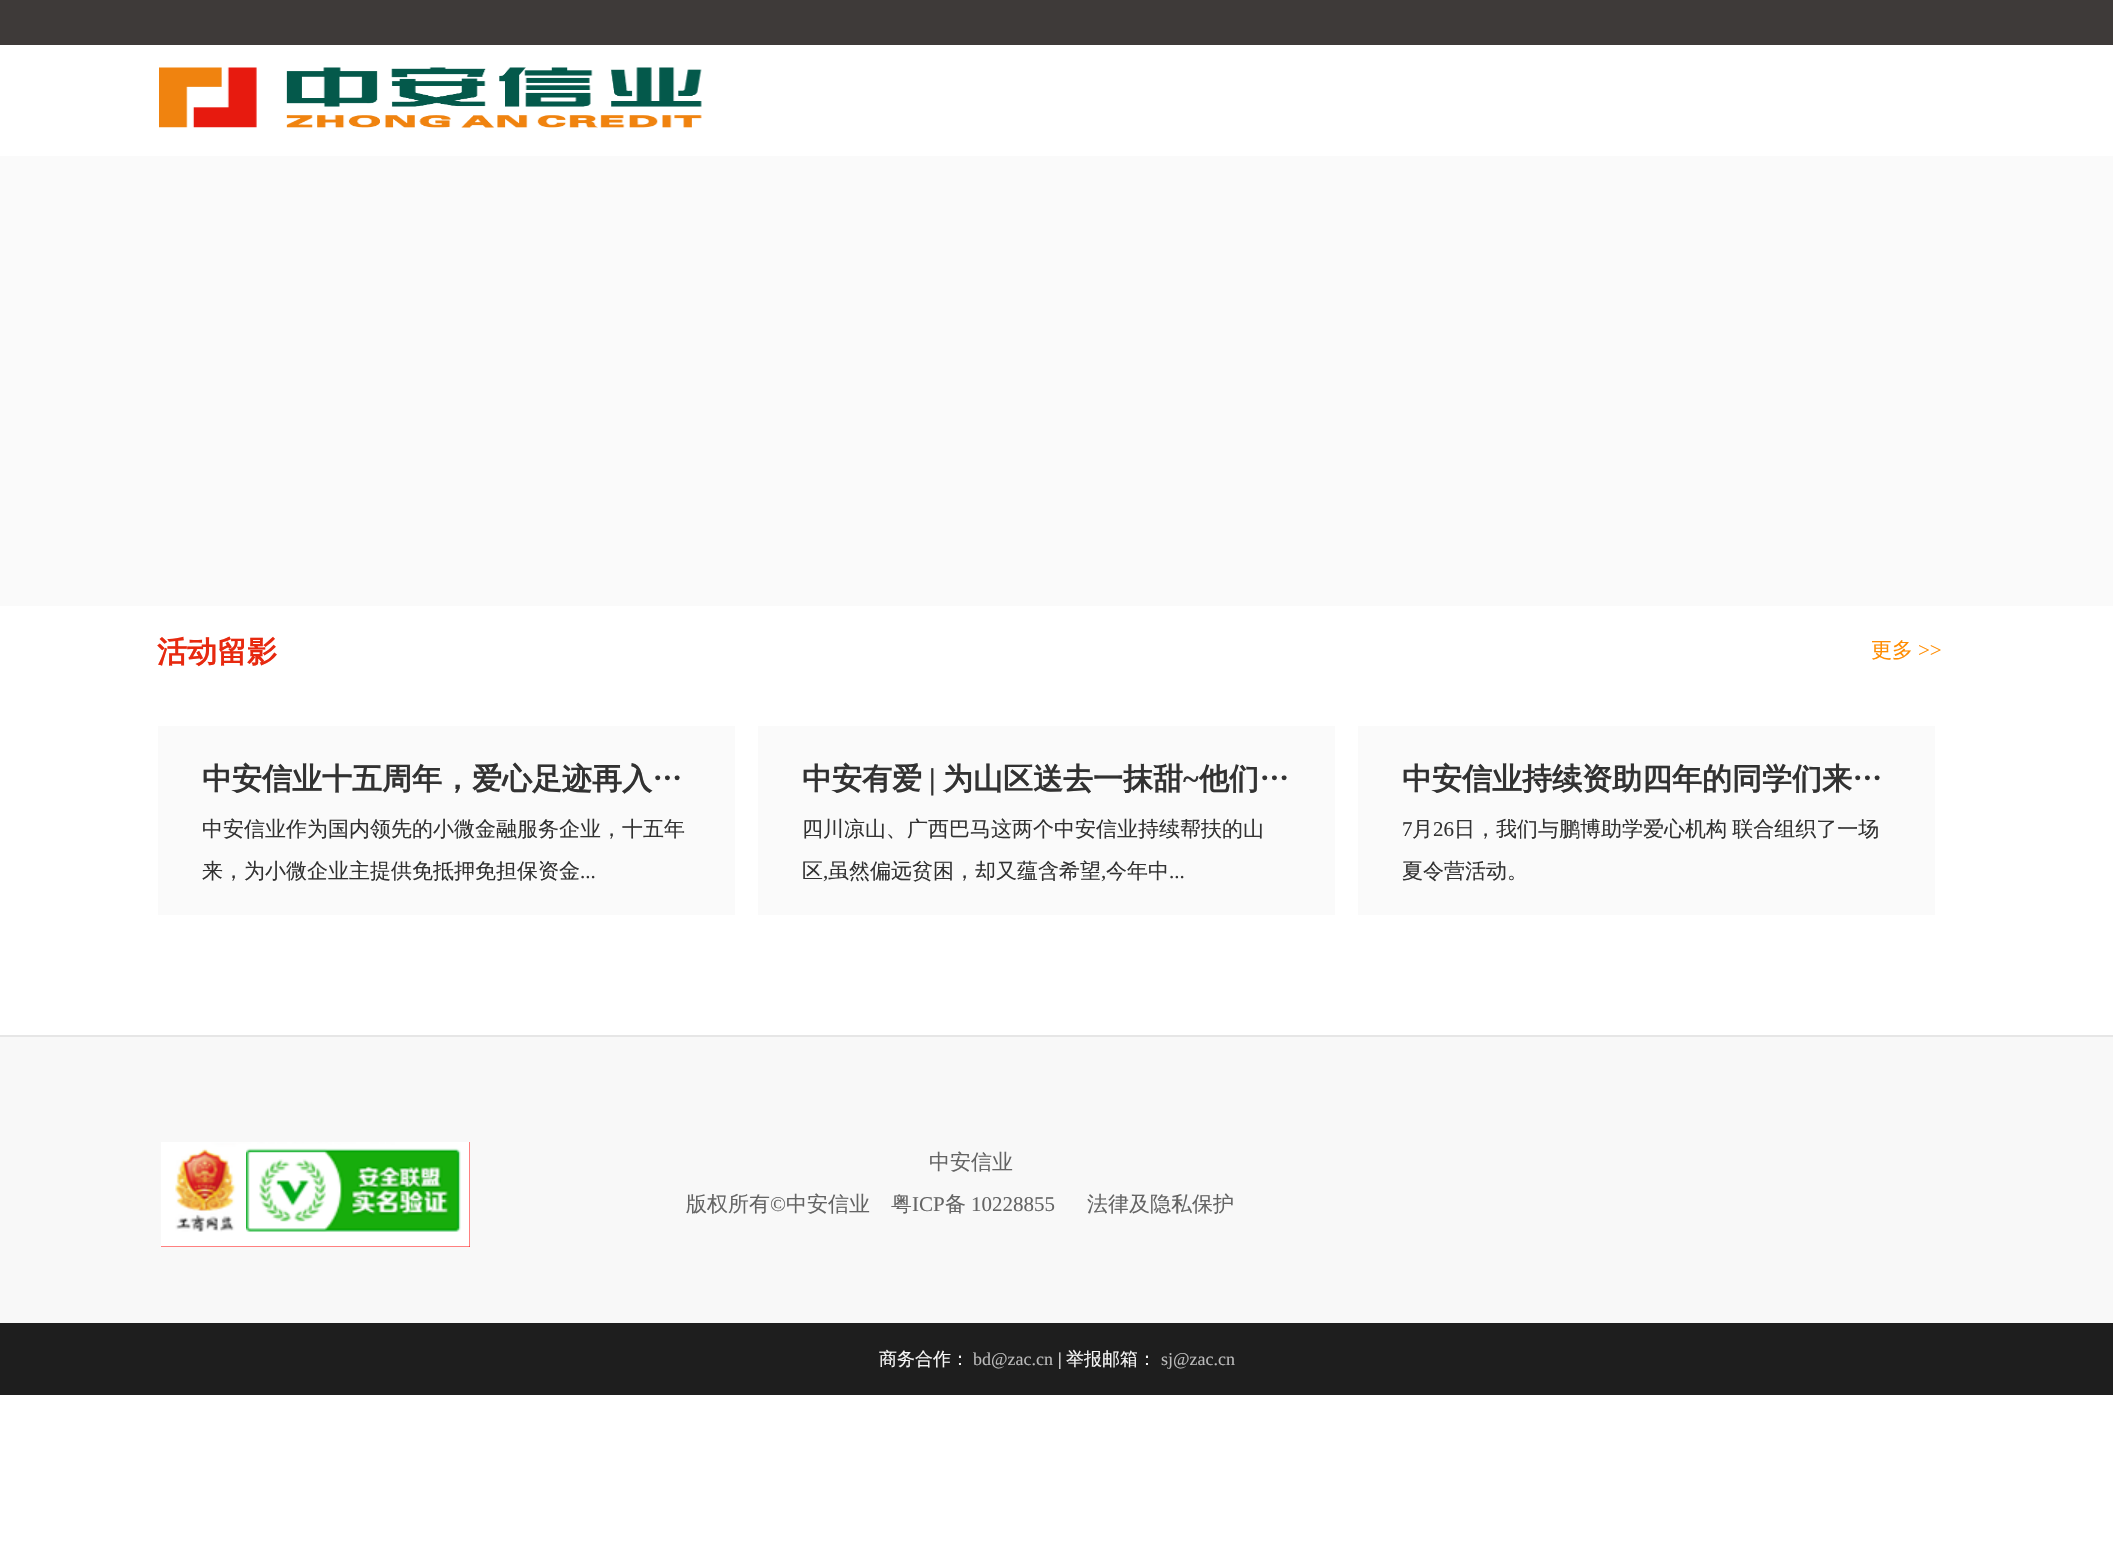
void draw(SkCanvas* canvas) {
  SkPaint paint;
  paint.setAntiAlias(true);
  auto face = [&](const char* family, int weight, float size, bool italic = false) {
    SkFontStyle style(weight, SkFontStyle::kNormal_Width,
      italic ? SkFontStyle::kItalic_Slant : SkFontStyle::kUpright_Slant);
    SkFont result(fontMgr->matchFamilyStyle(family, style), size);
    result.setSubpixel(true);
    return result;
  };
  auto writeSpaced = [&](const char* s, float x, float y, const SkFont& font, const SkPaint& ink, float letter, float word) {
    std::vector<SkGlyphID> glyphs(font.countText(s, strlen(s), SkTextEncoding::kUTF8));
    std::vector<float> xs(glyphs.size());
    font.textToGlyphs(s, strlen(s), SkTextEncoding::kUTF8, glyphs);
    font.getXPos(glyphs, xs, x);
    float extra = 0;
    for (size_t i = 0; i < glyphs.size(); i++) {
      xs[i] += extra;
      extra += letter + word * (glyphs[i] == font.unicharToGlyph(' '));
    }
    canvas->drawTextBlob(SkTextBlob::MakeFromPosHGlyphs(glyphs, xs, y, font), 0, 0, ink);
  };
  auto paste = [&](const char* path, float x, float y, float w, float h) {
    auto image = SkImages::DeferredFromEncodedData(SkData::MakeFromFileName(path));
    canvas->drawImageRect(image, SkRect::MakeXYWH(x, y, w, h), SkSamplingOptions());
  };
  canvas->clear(0xffffffff);
  paint.setColor(0xff3e3a39);
  canvas->drawRect(SkRect::MakeXYWH(0, 0, 2113, 45), paint);
  paste("img/1.png", 159, 67, 543, 61);
  {
    const struct { float x, y, w, h; SkColor color; } items[] = {
      {0, 156, 2113, 450, 0xfffafafa},
      {158, 726, 577, 189, 0xfffafafa},
      {758, 726, 577, 189, 0xfffafafa},
      {1358, 726, 577, 189, 0xfffafafa},
      {0, 1037, 2113, 286, 0xfff8f8f8},
      {0, 1035, 2113, 2, 0xffe6e6e6},
      {161, 1142, 309, 105, 0xffff0000},
    };
    for (auto [x, y, w, h, color] : items) {
      paint.setColor(color);
      canvas->drawRect(SkRect::MakeXYWH(x, y, w, h), paint);
    }
  }
  paste("img/2.png", 161, 1142, 85, 105);
  paste("img/3.png", 246, 1142, 224, 105);
  paint.setColor(0xff1e1e1e);
  canvas->drawRect(SkRect::MakeXYWH(0, 1323, 2113, 72), paint);
  auto f0 = face("WenQuanYi Zen Hei", 700, 30);
  paint.setColor(0xffe7290f);
  canvas->drawString("活动留影", 157, 662, f0, paint);
  auto f1 = face("WenQuanYi Zen Hei", 500, 21);
  paint.setColor(0xffff8c00);
  canvas->drawString("更多", 1871, 657, f1, paint);
  auto f2 = face("Liberation Serif", 400, 21);
  canvas->drawString(">>", 1918, 657, f2, paint);
  paint.setColor(0xff323232);
  canvas->drawString("中安信业十五周年，爱心足迹再入…", 202, 789, f0, paint);
  canvas->drawString("中安信业作为国内领先的小微金融服务企业，十五年", 202, 836, f1, paint);
  canvas->drawString("来，为小微企业主提供免抵押免担保资金", 202, 878, f1, paint);
  canvas->drawString("...", 580, 878, f2, paint);
  canvas->drawString("中安有爱", 802, 789, f0, paint);
  auto f3 = face("Liberation Serif", 700, 30);
  canvas->drawString("|", 929, 789, f3, paint);
  canvas->drawString("为山区送去一抹甜", 943, 789, f0, paint);
  canvas->drawString("~", 1183, 789, f3, paint);
  canvas->drawString("他们…", 1199, 789, f0, paint);
  canvas->drawString("四川凉山、广西巴马这两个中安信业持续帮扶的山", 802, 836, f1, paint);
  canvas->drawString("区", 802, 878, f1, paint);
  canvas->drawString(",", 823, 878, f2, paint);
  canvas->drawString("虽然偏远贫困，却又蕴含希望", 828, 878, f1, paint);
  canvas->drawString(",", 1101, 878, f2, paint);
  canvas->drawString("今年中", 1106, 878, f1, paint);
  canvas->drawString("...", 1169, 878, f2, paint);
  canvas->drawString("中安信业持续资助四年的同学们来…", 1402, 789, f0, paint);
  canvas->drawString("7", 1402, 836, f2, paint);
  canvas->drawString("月", 1412, 836, f1, paint);
  canvas->drawString("26", 1433, 836, f2, paint);
  writeSpaced("日，我们与鹏博助学爱心机构 联合组织了一场", 1454, 836, f1, paint, 0, -1);
  canvas->drawString("夏令营活动。", 1402, 878, f1, paint);
  paint.setColor(0xff646464);
  canvas->drawString("中安信业", 929, 1169, f1, paint);
  canvas->drawString("版权所有", 686, 1211, f1, paint);
  canvas->drawString("©", 770, 1211, f2, paint);
  canvas->drawString("中安信业", 786, 1211, f1, paint);
  canvas->drawString("粤", 891, 1211, f1, paint);
  canvas->drawString("ICP", 912, 1211, f2, paint);
  canvas->drawString("备", 945, 1211, f1, paint);
  canvas->drawString("10228855", 971, 1211, f2, paint);
  canvas->drawString("法律及隐私保护", 1087, 1211, f1, paint);
  auto f4 = face("WenQuanYi Zen Hei", 500, 18);
  paint.setColor(0xfff8f8f8);
  canvas->drawString("商务合作：", 879, 1365, f4, paint);
  auto f5 = face("Liberation Serif", 400, 18);
  paint.setColor(0xffbababa);
  canvas->drawString("bd@zac.cn", 973, 1365, f5, paint);
  paint.setColor(0xfff8f8f8);
  canvas->drawString("|", 1058, 1365, f5, paint);
  canvas->drawString("举报邮箱：", 1066, 1365, f4, paint);
  paint.setColor(0xffbababa);
  canvas->drawString("sj@zac.cn", 1161, 1365, f5, paint);
}
